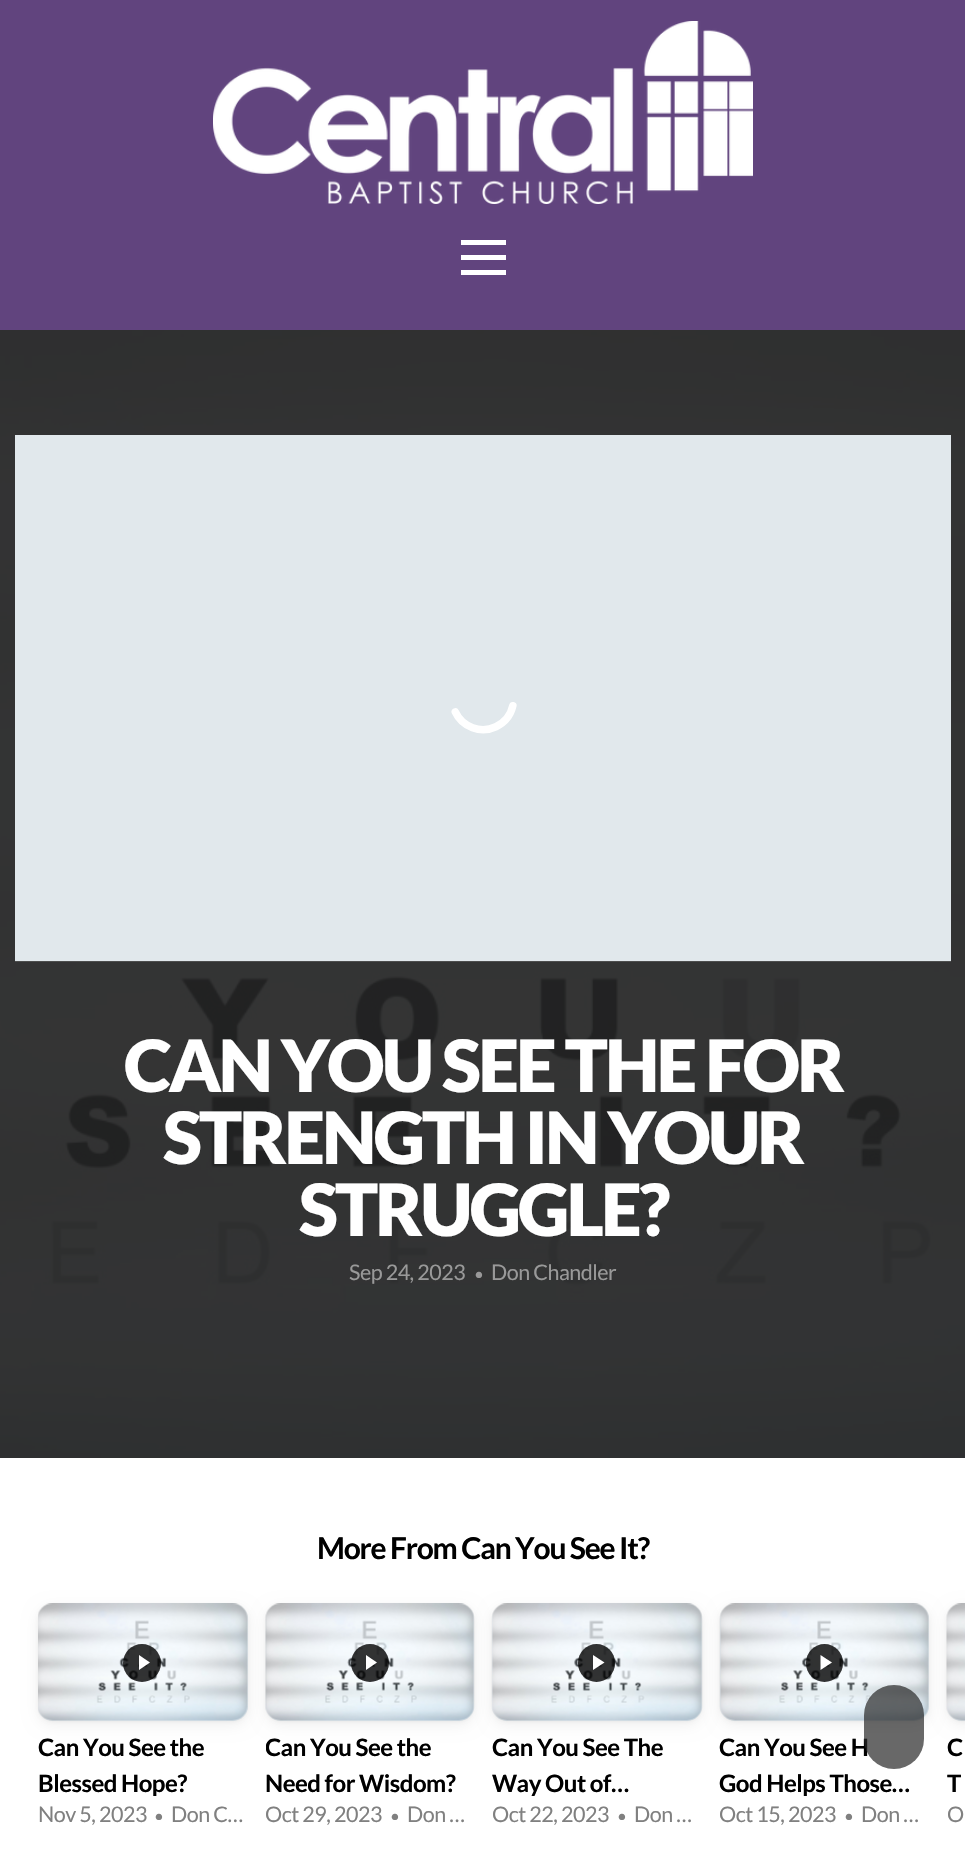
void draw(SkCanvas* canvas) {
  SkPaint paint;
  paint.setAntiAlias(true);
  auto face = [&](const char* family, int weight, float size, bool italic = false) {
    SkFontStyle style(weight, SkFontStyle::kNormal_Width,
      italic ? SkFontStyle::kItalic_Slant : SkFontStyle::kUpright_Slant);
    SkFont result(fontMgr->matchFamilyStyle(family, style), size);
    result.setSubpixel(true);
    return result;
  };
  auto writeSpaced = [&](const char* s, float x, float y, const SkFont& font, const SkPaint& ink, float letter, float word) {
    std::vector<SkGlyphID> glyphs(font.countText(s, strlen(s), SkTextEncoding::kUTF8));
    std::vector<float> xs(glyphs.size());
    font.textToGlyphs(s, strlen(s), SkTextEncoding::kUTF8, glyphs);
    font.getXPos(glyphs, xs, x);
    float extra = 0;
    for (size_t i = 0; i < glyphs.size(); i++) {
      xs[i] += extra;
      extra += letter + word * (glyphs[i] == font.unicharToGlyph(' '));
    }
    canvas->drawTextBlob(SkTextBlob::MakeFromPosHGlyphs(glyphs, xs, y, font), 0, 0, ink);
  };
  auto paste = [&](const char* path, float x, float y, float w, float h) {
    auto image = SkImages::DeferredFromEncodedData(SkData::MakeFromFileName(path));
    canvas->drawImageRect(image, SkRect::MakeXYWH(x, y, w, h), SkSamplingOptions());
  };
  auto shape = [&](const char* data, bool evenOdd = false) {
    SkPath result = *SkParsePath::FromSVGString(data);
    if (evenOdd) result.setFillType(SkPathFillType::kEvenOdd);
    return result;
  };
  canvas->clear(0xff61447e);
  paste("img/1.png", 213, 21, 540, 183);
  {
    const struct { float x, y, w, h; SkColor color; } items[] = {
      {461, 240, 45, 5, 0xffffffff},
      {461, 255, 45, 5, 0xffffffff},
      {461, 270, 45, 5, 0xffffffff},
    };
    for (auto [x, y, w, h, color] : items) {
      paint.setColor(color);
      canvas->drawRect(SkRect::MakeXYWH(x, y, w, h), paint);
    }
  }
  paste("img/2.png", 0, 330, 965, 1128);
  paste("img/3.png", 15, 435, 936, 527);
  canvas->drawRect(SkRect::MakeXYWH(0, 1458, 965, 395), paint);
  paint.setColor(0x0a000000);
  paint.setMaskFilter(SkMaskFilter::MakeBlur(kNormal_SkBlurStyle, 1.5f));
  canvas->drawRoundRect(SkRect::MakeXYWH(38, 1605, 210, 117), 15, 15, paint);
  paint.setMaskFilter(nullptr);
  paint.setColor(0x0f000000);
  paint.setMaskFilter(SkMaskFilter::MakeBlur(kNormal_SkBlurStyle, 7.5f));
  canvas->drawRoundRect(SkRect::MakeXYWH(38, 1608, 210, 117), 15, 15, paint);
  paint.setMaskFilter(nullptr);
  paint.setColor(0xffe1e8ec);
  canvas->drawRoundRect(SkRect::MakeXYWH(38, 1604, 210, 117), 15, 15, paint);
  paste("img/4.png", 38, 1603, 210, 118);
  paint.setColor(0xcc000000);
  canvas->drawCircle(142, 1663, 19, paint);
  paint.setColor(0xffffffff);
  canvas->drawPath(shape("M139 1670V1655L150 1662.5Z"), paint);
  paint.setColor(0x0a000000);
  paint.setMaskFilter(SkMaskFilter::MakeBlur(kNormal_SkBlurStyle, 1.5f));
  canvas->drawRoundRect(SkRect::MakeXYWH(266, 1605, 208, 117), 15, 15, paint);
  paint.setMaskFilter(nullptr);
  paint.setColor(0x0f000000);
  paint.setMaskFilter(SkMaskFilter::MakeBlur(kNormal_SkBlurStyle, 7.5f));
  canvas->drawRoundRect(SkRect::MakeXYWH(266, 1608, 208, 117), 15, 15, paint);
  paint.setMaskFilter(nullptr);
  paint.setColor(0xffe1e8ec);
  canvas->drawRoundRect(SkRect::MakeXYWH(266, 1604, 208, 117), 15, 15, paint);
  paste("img/5.png", 265, 1603, 210, 118);
  paint.setColor(0xcc000000);
  canvas->drawCircle(370, 1663, 19, paint);
  paint.setColor(0xffffffff);
  canvas->drawPath(shape("M366 1670V1655L377 1662.5Z"), paint);
  paint.setColor(0x0a000000);
  paint.setMaskFilter(SkMaskFilter::MakeBlur(kNormal_SkBlurStyle, 1.5f));
  canvas->drawRoundRect(SkRect::MakeXYWH(492, 1605, 210, 117), 15, 15, paint);
  paint.setMaskFilter(nullptr);
  paint.setColor(0x0f000000);
  paint.setMaskFilter(SkMaskFilter::MakeBlur(kNormal_SkBlurStyle, 7.5f));
  canvas->drawRoundRect(SkRect::MakeXYWH(492, 1608, 210, 117), 15, 15, paint);
  paint.setMaskFilter(nullptr);
  paint.setColor(0xffe1e8ec);
  canvas->drawRoundRect(SkRect::MakeXYWH(492, 1604, 210, 117), 15, 15, paint);
  paste("img/6.png", 491, 1603, 212, 118);
  paint.setColor(0xcc000000);
  canvas->drawRoundRect(SkRect::MakeXYWH(578, 1644, 37, 38), 18.5f, 18.5f, paint);
  paint.setColor(0xffffffff);
  canvas->drawPath(shape("M593 1670V1655L604.5 1662.5Z"), paint);
  paint.setColor(0x0a000000);
  paint.setMaskFilter(SkMaskFilter::MakeBlur(kNormal_SkBlurStyle, 1.5f));
  canvas->drawRoundRect(SkRect::MakeXYWH(720, 1605, 209, 117), 15, 15, paint);
  paint.setMaskFilter(nullptr);
  paint.setColor(0x0f000000);
  paint.setMaskFilter(SkMaskFilter::MakeBlur(kNormal_SkBlurStyle, 7.5f));
  canvas->drawRoundRect(SkRect::MakeXYWH(720, 1608, 209, 117), 15, 15, paint);
  paint.setMaskFilter(nullptr);
  paint.setColor(0xffe1e8ec);
  canvas->drawRoundRect(SkRect::MakeXYWH(720, 1604, 209, 117), 15, 15, paint);
  paste("img/7.png", 719, 1603, 210, 118);
  paint.setColor(0xcc000000);
  canvas->drawRoundRect(SkRect::MakeXYWH(806, 1644, 37, 38), 18.5f, 18.5f, paint);
  paint.setColor(0xffffffff);
  canvas->drawPath(shape("M820.5 1670V1655L832 1662.5Z"), paint);
  paint.setColor(0x0a000000);
  paint.setMaskFilter(SkMaskFilter::MakeBlur(kNormal_SkBlurStyle, 1.5f));
  canvas->drawRoundRect(SkRect::MakeXYWH(947, 1605, 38, 117), 15, 15, paint);
  paint.setMaskFilter(nullptr);
  paint.setColor(0x0f000000);
  paint.setMaskFilter(SkMaskFilter::MakeBlur(kNormal_SkBlurStyle, 7.5f));
  canvas->drawRoundRect(SkRect::MakeXYWH(947, 1608, 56, 117), 15, 15, paint);
  paint.setMaskFilter(nullptr);
  paint.setColor(0xffe1e8ec);
  canvas->drawPath(shape("M962 1604H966V1721H962C953.5 1721 947 1714.5 947 1706V1619C947 1610.5 953.5 1604 962 1604Z"), paint);
  paste("img/8.png", 946, 1603, 19, 118);
  auto f0 = face("Lato", 900, 72);
  paint.setColor(0xffffffff);
  {
    const struct { const char* s; float x, y; } items[] = {
      {"CAN YOU SEE THE FOR", 124, 1092},
      {"STRENGTH IN YOUR", 163, 1164},
      {"STRUGGLE?", 299, 1236},
    };
    for (auto [s, x, y] : items) {
      writeSpaced(s, x, y, f0, paint, -2.9f, 0);
    }
  }
  auto f1 = face("Lato", 400, 21.5f);
  paint.setColor(0xff999999);
  writeSpaced("Sep 24, 2023", 349, 1280, f1, paint, -0.5f, 0);
  auto f2 = face("Lato", 400, 17);
  writeSpaced("•", 474, 1280, f2, paint, -0.5f, 0);
  writeSpaced("Don Chandler", 491, 1280, f1, paint, -0.5f, 0);
  auto f3 = face("Lato", 700, 30);
  paint.setColor(0xff000000);
  writeSpaced("More From Can You See It?", 317, 1559, f3, paint, -1.2f, 0);
  auto f4 = face("Lato", 700, 24);
  writeSpaced("Can You See the", 38, 1756, f4, paint, -0.5f, 0);
  writeSpaced("Blessed Hope?", 38, 1792, f4, paint, -0.5f, 0);
  paint.setColor(0xff808080);
  writeSpaced("Nov 5, 2023", 38, 1822, f1, paint, -0.5f, 0);
  writeSpaced("•", 154, 1822, f2, paint, -0.5f, 0);
  writeSpaced("Don C…", 171, 1822, f1, paint, -0.5f, 0);
  canvas->save();
  canvas->clipRect(SkRect::MakeXYWH(266, 1728, 208, 72));
  paint.setColor(0xff000000);
  writeSpaced("Can You See the", 265, 1756, f4, paint, -0.5f, 0);
  canvas->restore();
  writeSpaced("Need for Wisdom?", 265, 1792, f4, paint, -0.5f, 0);
  canvas->save();
  canvas->clipRect(SkRect::MakeXYWH(266, 1800, 208, 30));
  paint.setColor(0xff808080);
  writeSpaced("Oct 29, 2023", 265, 1822, f1, paint, -0.5f, 0);
  canvas->restore();
  writeSpaced("•", 390, 1822, f2, paint, -0.5f, 0);
  writeSpaced("Don …", 407, 1822, f1, paint, -0.5f, 0);
  paint.setColor(0xff000000);
  writeSpaced("Can You See The", 492, 1756, f4, paint, -0.5f, 0);
  writeSpaced("Way Out of…", 492, 1792, f4, paint, -0.5f, 0);
  paint.setColor(0xff808080);
  writeSpaced("Oct 22, 2023", 492, 1822, f1, paint, -0.5f, 0);
  writeSpaced("•", 617, 1822, f2, paint, -0.5f, 0);
  writeSpaced("Don …", 634, 1822, f1, paint, -0.5f, 0);
  paint.setColor(0xff000000);
  writeSpaced("Can You See H", 719, 1756, f4, paint, -0.5f, 0);
  paint.setColor(0xb3282828);
  canvas->drawRoundRect(SkRect::MakeXYWH(864, 1685, 60, 84), 30, 30, paint);
  paint.setColor(0xff000000);
  writeSpaced("God Helps Those…", 719, 1792, f4, paint, -0.5f, 0);
  paint.setColor(0xff808080);
  writeSpaced("Oct 15, 2023", 719, 1822, f1, paint, -0.5f, 0);
  writeSpaced("•", 844, 1822, f2, paint, -0.5f, 0);
  writeSpaced("Don …", 861, 1822, f1, paint, -0.5f, 0);
  paint.setColor(0xff000000);
  writeSpaced("C", 947, 1756, f4, paint, -0.5f, 0);
  canvas->save();
  canvas->clipRect(SkRect::MakeXYWH(947, 1728, 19, 72));
  writeSpaced("T", 947, 1792, f4, paint, -0.5f, 0);
  canvas->restore();
  paint.setColor(0xff808080);
  writeSpaced("O", 947, 1822, f1, paint, -0.5f, 0);
}
